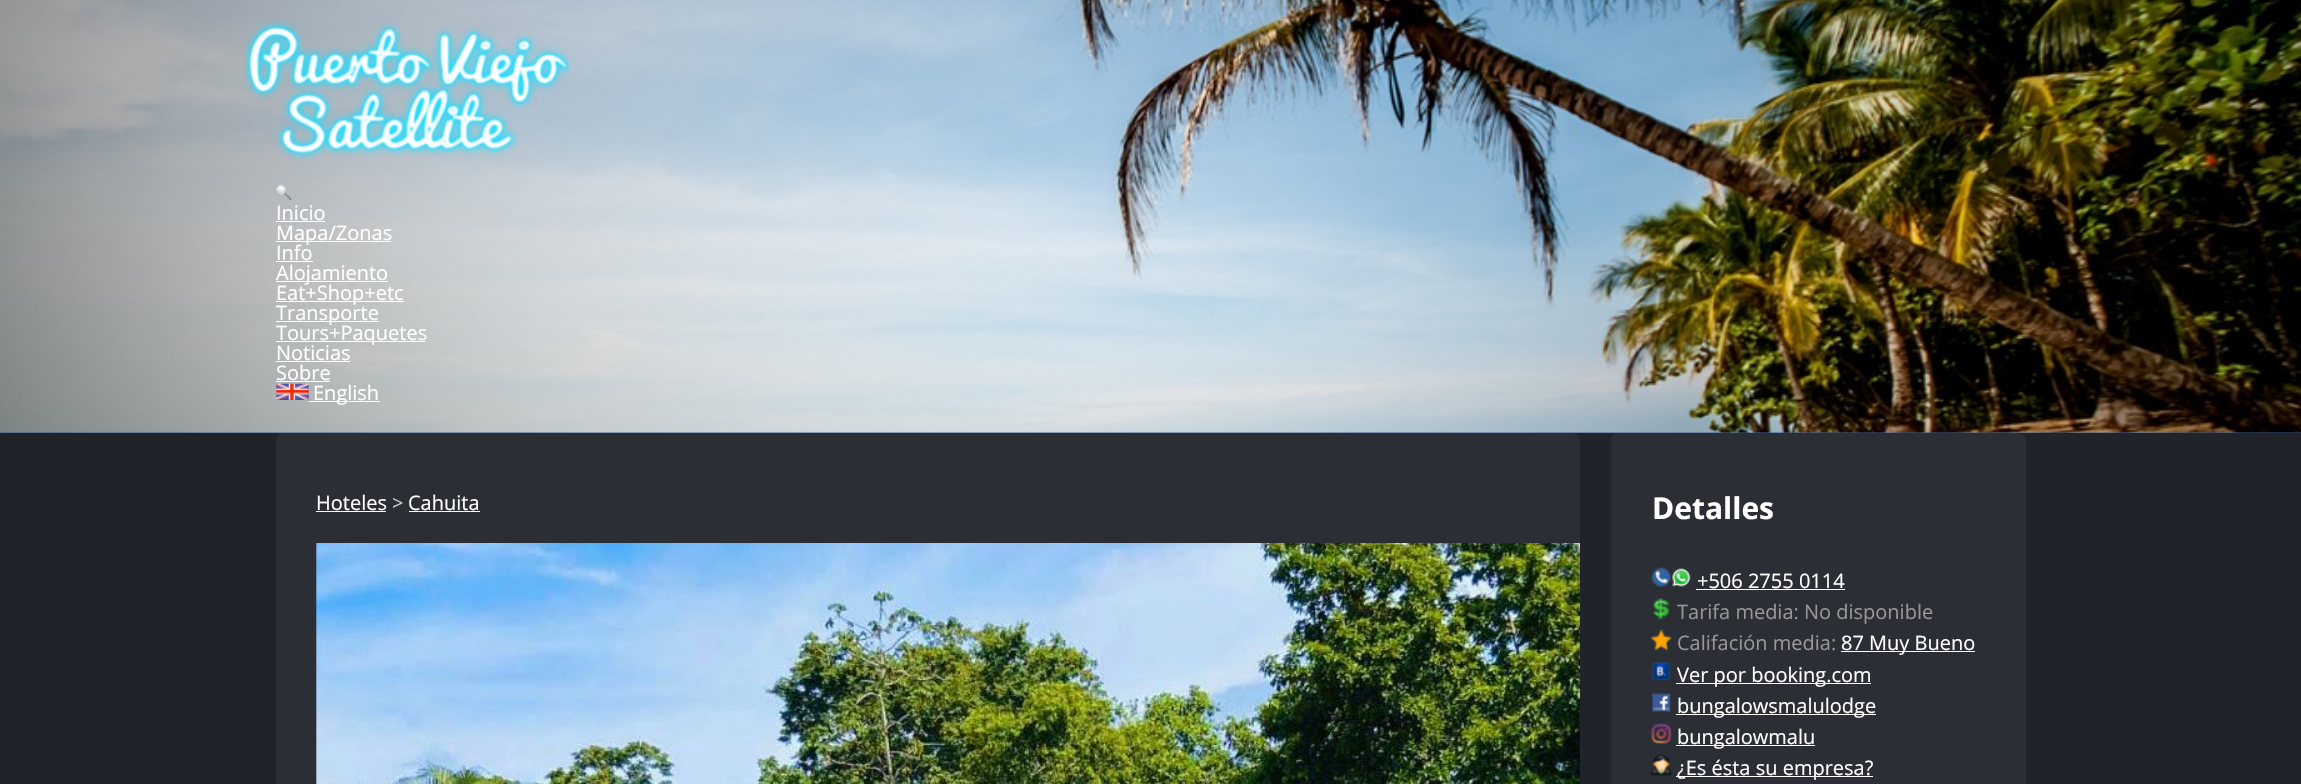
void draw(SkCanvas* canvas) {
  SkPaint paint;
  paint.setAntiAlias(true);
  auto face = [&](const char* family, int weight, float size, bool italic = false) {
    SkFontStyle style(weight, SkFontStyle::kNormal_Width,
      italic ? SkFontStyle::kItalic_Slant : SkFontStyle::kUpright_Slant);
    SkFont result(fontMgr->matchFamilyStyle(family, style), size);
    result.setSubpixel(true);
    return result;
  };
  auto paste = [&](const char* path, float x, float y, float w, float h) {
    auto image = SkImages::DeferredFromEncodedData(SkData::MakeFromFileName(path));
    canvas->drawImageRect(image, SkRect::MakeXYWH(x, y, w, h), SkSamplingOptions());
  };
  canvas->clear(0xff3f6093);
  paste("img/1.png", 0, 0, 2301, 433);
  paste("img/2.png", 244, 20, 325, 141);
  paste("img/3.png", 276, 185, 16, 15);
  {
    const struct { float x, y, w, h; SkColor color; } items[] = {
      {276, 221, 49, 1, 0xffffffff},
      {276, 241, 115, 1, 0xffffffff},
      {276, 261, 37, 1, 0xffffffff},
      {276, 281, 112, 1, 0xffffffff},
      {276, 301, 128, 1, 0xffffffff},
      {276, 321, 103, 1, 0xffffffff},
      {276, 341, 150, 1, 0xffffffff},
      {276, 361, 74, 1, 0xffffffff},
      {276, 381, 54, 1, 0xffffffff},
    };
    for (auto [x, y, w, h, color] : items) {
      paint.setColor(color);
      canvas->drawRect(SkRect::MakeXYWH(x, y, w, h), paint);
    }
  }
  paste("img/4.png", 276, 383, 33, 17);
  canvas->drawRect(SkRect::MakeXYWH(309, 401, 71, 1), paint);
  paint.setColor(0xff20242a);
  canvas->drawRect(SkRect::MakeXYWH(0, 433, 2301, 351), paint);
  paint.setColor(0xff2b2e34);
  canvas->drawRoundRect(SkRect::MakeXYWH(276, 433, 1304, 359), 8, 8, paint);
  paint.setColor(0xffffffff);
  canvas->drawRect(SkRect::MakeXYWH(316, 511, 70, 1), paint);
  canvas->drawRect(SkRect::MakeXYWH(409, 511, 71, 1), paint);
  paste("img/5.png", 316, 543, 1264, 241);
  paint.setColor(0xff2b2e34);
  canvas->drawRoundRect(SkRect::MakeXYWH(1611, 433, 415, 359), 8, 8, paint);
  paste("img/6.png", 1651, 567, 21, 20);
  paste("img/7.png", 1672, 568, 19, 19);
  paint.setColor(0xffffffff);
  canvas->drawRect(SkRect::MakeXYWH(1696, 589, 149, 1), paint);
  paste("img/8.png", 1653, 598, 17, 22);
  paste("img/9.png", 1651, 629, 21, 22);
  canvas->drawRect(SkRect::MakeXYWH(1841, 651, 134, 1), paint);
  paste("img/10.png", 1652, 662, 19, 19);
  canvas->drawRect(SkRect::MakeXYWH(1676, 683, 195, 1), paint);
  paste("img/11.png", 1652, 693, 19, 19);
  canvas->drawRect(SkRect::MakeXYWH(1676, 714, 200, 1), paint);
  paste("img/12.png", 1651, 723, 21, 22);
  canvas->drawRect(SkRect::MakeXYWH(1676, 745, 139, 1), paint);
  paste("img/13.png", 1651, 754, 21, 22);
  canvas->drawRect(SkRect::MakeXYWH(1676, 776, 197, 1), paint);
  auto f0 = face("Open Sans", 400, 20);
  {
    const struct { const char* s; float x, y; } items[] = {
      {"Inicio", 276, 220},
      {"Mapa/Zonas", 276, 240},
      {"Info", 276, 260},
      {"Alojamiento", 276, 280},
      {"Eat+Shop+etc", 276, 300},
      {"Transporte", 276, 320},
      {"Tours+Paquetes", 276, 340},
      {"Noticias", 276, 360},
      {"Sobre", 276, 380},
      {"English", 313, 400},
      {"Hoteles", 316, 510},
    };
    for (auto [s, x, y] : items) {
      canvas->drawString(s, x, y, f0, paint);
    }
  }
  paint.setColor(0xffc9c9c9);
  canvas->drawString(">", 392, 510, f0, paint);
  paint.setColor(0xffffffff);
  canvas->drawString("Cahuita", 408, 510, f0, paint);
  auto f1 = face("Open Sans", 700, 30);
  canvas->drawString("Detalles", 1652, 519, f1, paint);
  canvas->drawString("+506 2755 0114", 1697, 588, f0, paint);
  paint.setColor(0xff979797);
  canvas->drawString("Tarifa media: No disponible", 1677, 619, f0, paint);
  canvas->drawString("Califación media:", 1677, 650, f0, paint);
  paint.setColor(0xffffffff);
  {
    const struct { const char* s; float x, y; } items[] = {
      {"87 Muy Bueno", 1841, 650},
      {"Ver por booking.com", 1677, 682},
      {"bungalowsmalulodge", 1677, 713},
      {"bungalowmalu", 1677, 744},
      {"¿Es ésta su empresa?", 1677, 775},
    };
    for (auto [s, x, y] : items) {
      canvas->drawString(s, x, y, f0, paint);
    }
  }
}
